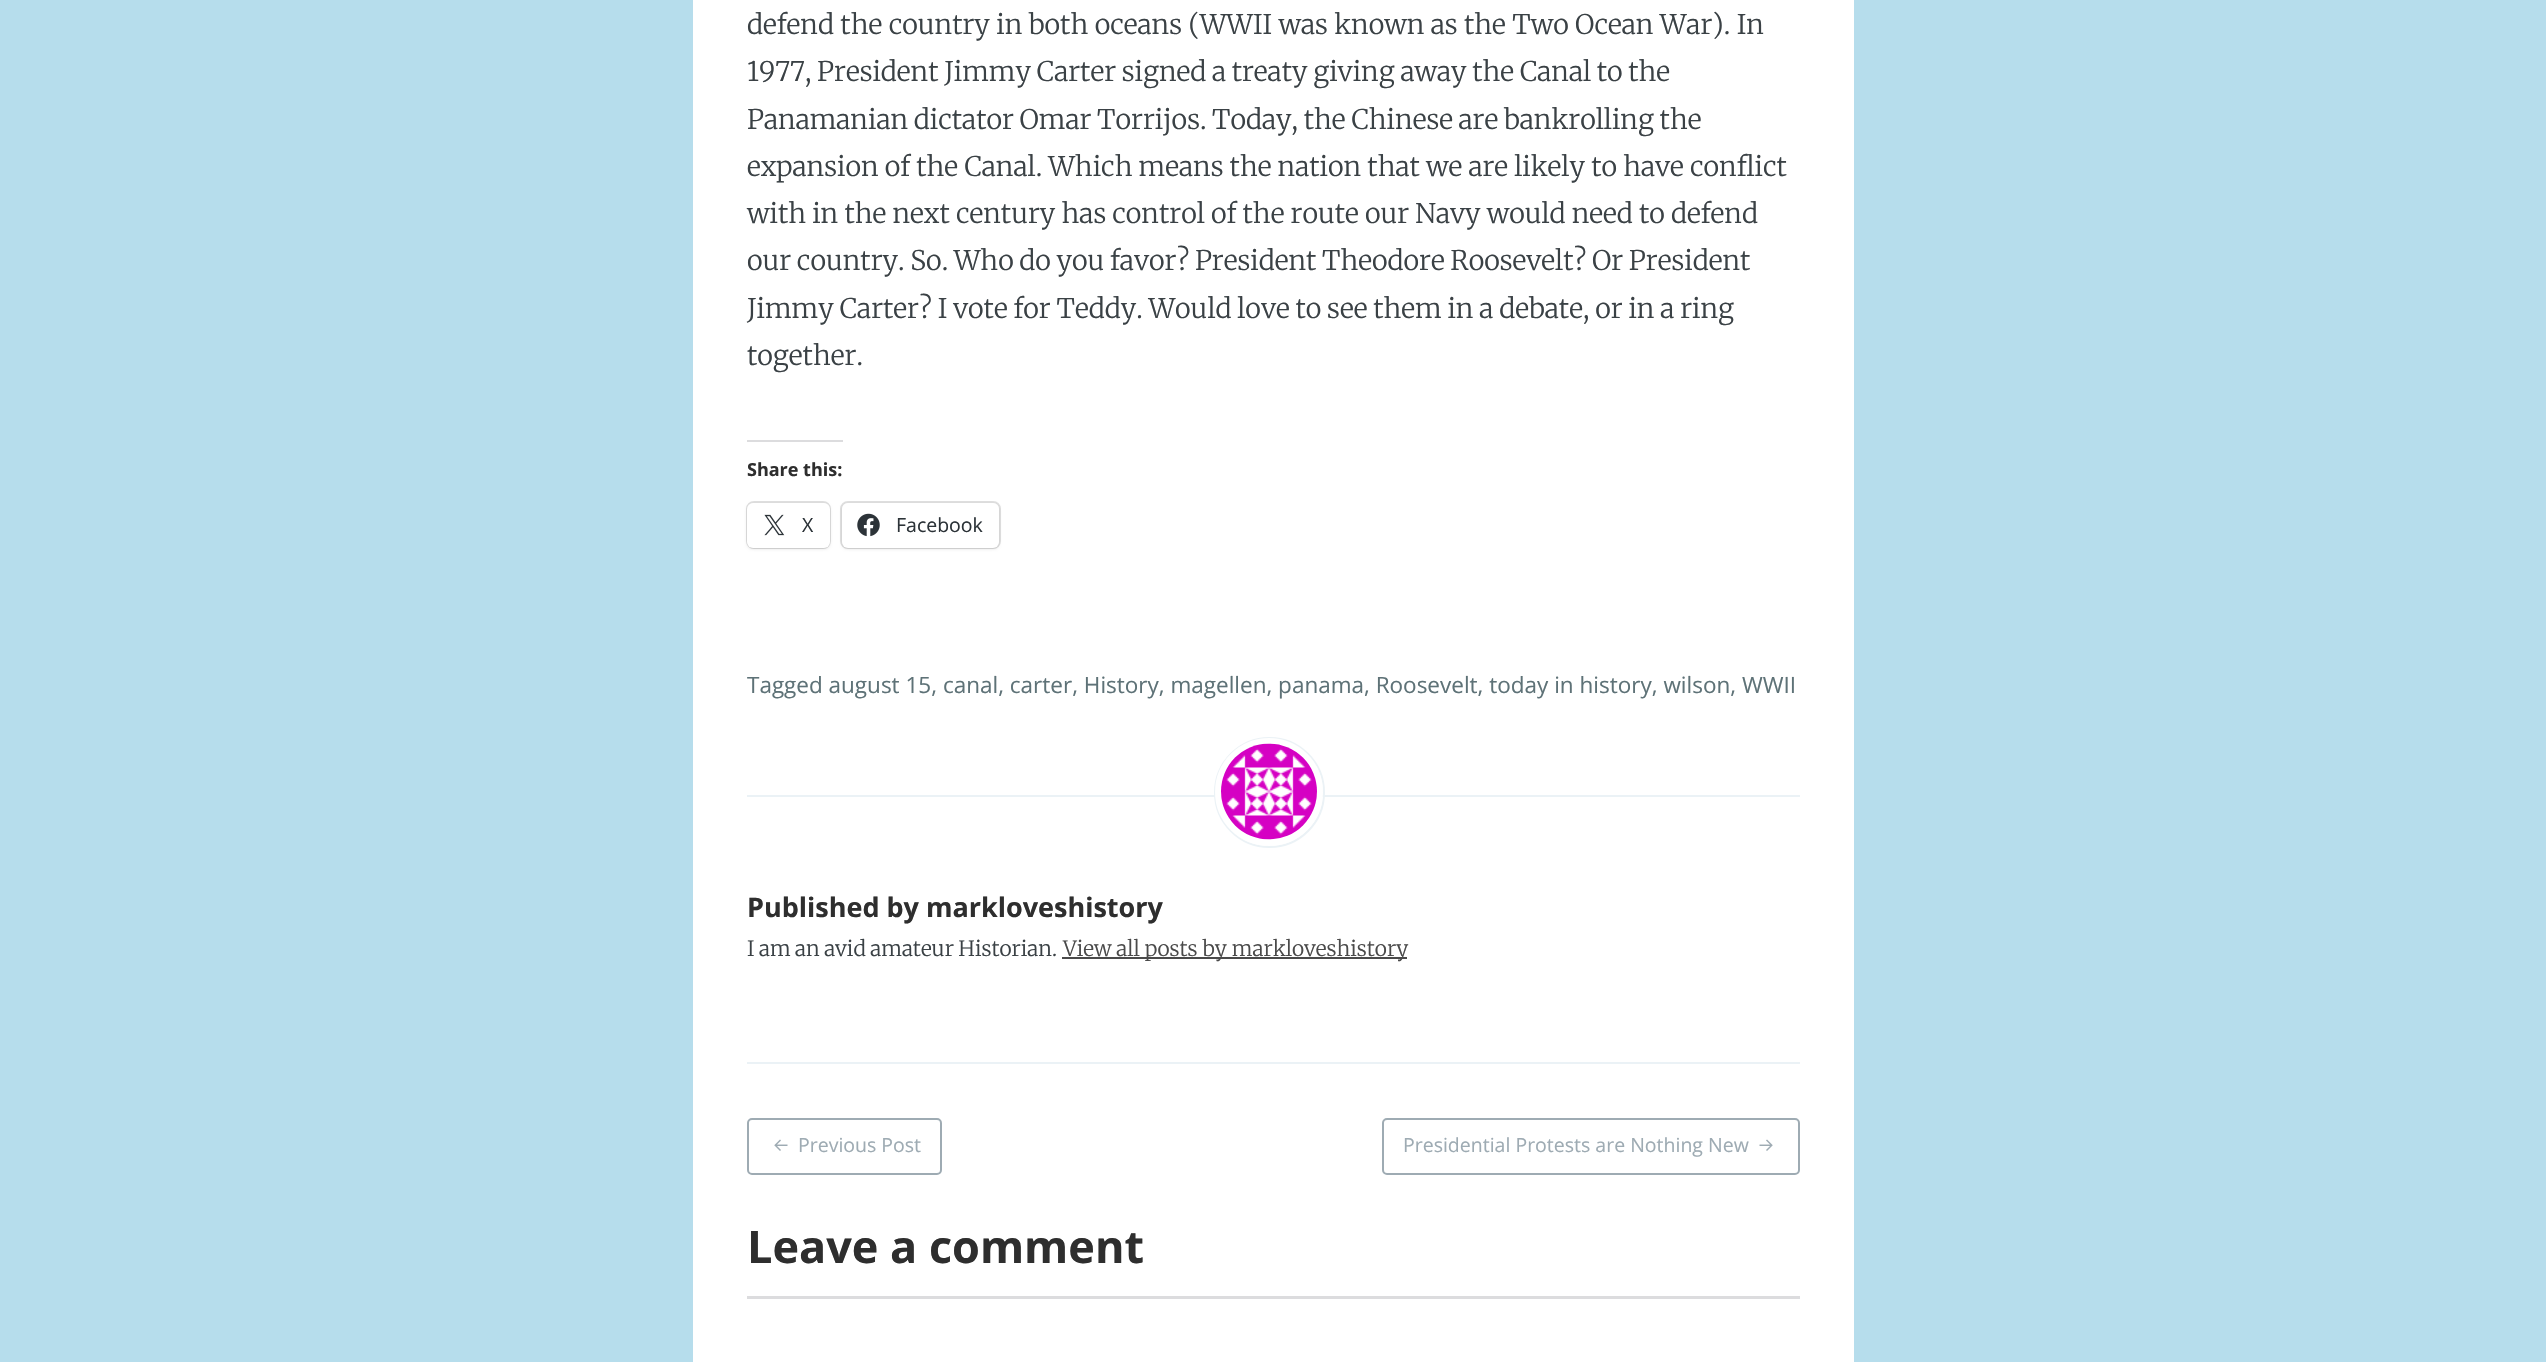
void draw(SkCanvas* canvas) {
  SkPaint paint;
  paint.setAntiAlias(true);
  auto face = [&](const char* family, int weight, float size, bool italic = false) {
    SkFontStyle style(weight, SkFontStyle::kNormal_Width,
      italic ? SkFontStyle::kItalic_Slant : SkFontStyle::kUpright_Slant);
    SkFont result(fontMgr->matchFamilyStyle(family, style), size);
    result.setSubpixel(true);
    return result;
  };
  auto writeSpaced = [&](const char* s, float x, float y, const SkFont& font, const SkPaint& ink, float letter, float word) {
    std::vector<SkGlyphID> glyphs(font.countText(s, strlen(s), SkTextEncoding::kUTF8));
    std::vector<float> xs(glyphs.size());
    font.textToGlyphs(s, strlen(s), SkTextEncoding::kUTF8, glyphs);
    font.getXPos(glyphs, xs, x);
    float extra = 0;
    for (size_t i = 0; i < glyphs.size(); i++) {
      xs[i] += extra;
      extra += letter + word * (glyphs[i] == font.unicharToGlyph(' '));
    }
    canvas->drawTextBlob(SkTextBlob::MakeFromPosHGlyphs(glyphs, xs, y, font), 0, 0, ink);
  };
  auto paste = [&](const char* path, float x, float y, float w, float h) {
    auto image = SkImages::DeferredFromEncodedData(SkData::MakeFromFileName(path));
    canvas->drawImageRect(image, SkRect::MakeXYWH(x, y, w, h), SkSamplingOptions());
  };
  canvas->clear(0xffb6ddec);
  {
    const struct { float x, y, w, h; SkColor color; } items[] = {
      {693, 0, 1161, 1362, 0xffffffff},
      {747, 1062, 1053, 2, 0xffebf2f6},
      {747, 440, 96, 2, 0xffdcdcde},
    };
    for (auto [x, y, w, h, color] : items) {
      paint.setColor(color);
      canvas->drawRect(SkRect::MakeXYWH(x, y, w, h), paint);
    }
  }
  paint.setStroke(true);
  paint.setStrokeWidth(2);
  paint.setColor(0xffe0e0e0);
  canvas->drawRoundRect(SkRect::MakeXYWH(747, 502, 83, 46), 7, 7, paint);
  paint.setStroke(false);
  paint.setColor(0x1f000000);
  paint.setMaskFilter(SkMaskFilter::MakeBlur(kNormal_SkBlurStyle, 1.5f));
  canvas->drawRoundRect(SkRect::MakeXYWH(747, 504, 83, 45), 6, 6, paint);
  paint.setMaskFilter(nullptr);
  paint.setColor(0xffffffff);
  canvas->drawRoundRect(SkRect::MakeXYWH(747, 503, 83, 45), 6, 6, paint);
  paste("img/1.png", 764, 514, 21, 22);
  paint.setStroke(true);
  paint.setColor(0xffe0e0e0);
  canvas->drawRoundRect(SkRect::MakeXYWH(841, 502, 159, 46), 7, 7, paint);
  paint.setStroke(false);
  paint.setColor(0x1f000000);
  paint.setMaskFilter(SkMaskFilter::MakeBlur(kNormal_SkBlurStyle, 1.5f));
  canvas->drawRoundRect(SkRect::MakeXYWH(842, 504, 157, 45), 6, 6, paint);
  paint.setMaskFilter(nullptr);
  paint.setColor(0xffffffff);
  canvas->drawRoundRect(SkRect::MakeXYWH(842, 503, 157, 45), 6, 6, paint);
  paste("img/2.png", 857, 513, 23, 24);
  paint.setColor(0xffebf2f6);
  canvas->drawRect(SkRect::MakeXYWH(747, 795, 1053, 2), paint);
  paint.setStroke(true);
  canvas->drawCircle(1269.5f, 792.5f, 54.5f, paint);
  paint.setStrokeWidth(6);
  paint.setColor(0xffffffff);
  canvas->drawCircle(1269, 792, 51, paint);
  paste("img/3.png", 1221, 743, 96, 97);
  paint.setStroke(false);
  paint.setColor(0xff4a4a4a);
  canvas->drawRect(SkRect::MakeXYWH(1062, 957, 345, 2), paint);
  paint.setStroke(true);
  paint.setStrokeWidth(2);
  paint.setColor(0xff9eabb3);
  canvas->drawRoundRect(SkRect::MakeXYWH(748, 1119, 193, 55), 4, 4, paint);
  paste("img/4.png", 774, 1139, 14, 12);
  canvas->drawRoundRect(SkRect::MakeXYWH(1383, 1119, 416, 55), 4, 4, paint);
  paste("img/5.png", 1759, 1139, 14, 12);
  paint.setStroke(false);
  paint.setColor(0xffdcdcde);
  canvas->drawRect(SkRect::MakeXYWH(747, 1296, 1053, 3), paint);
  auto f0 = face("Merriweather", 300, 27);
  paint.setColor(0xff3a4145);
  canvas->drawString("defend the country in both oceans (WWII was known as the Two Ocean War). In", 747, 34, f0, paint);
  writeSpaced("1977, President Jimmy Carter signed a treaty giving away the Canal to the", 747, 81, f0, paint, 0, -0.75f);
  writeSpaced("Panamanian dictator Omar Torrijos. Today, the Chinese are bankrolling the", 747, 129, f0, paint, 0, -0.75f);
  writeSpaced("expansion of the Canal. Which means the nation that we are likely to have conflict", 747, 176, f0, paint, 0, -0.25f);
  writeSpaced("with in the next century has control of the route our Navy would need to defend", 747, 223, f0, paint, 0, -0.25f);
  writeSpaced("our country. So. Who do you favor? President Theodore Roosevelt? Or President", 747, 270, f0, paint, 0, -0.75f);
  writeSpaced("Jimmy Carter? I vote for Teddy. Would love to see them in a debate, or in a ring", 747, 318, f0, paint, 0, -0.6f);
  canvas->drawString("together.", 747, 365, f0, paint);
  auto f1 = face("Open Sans", 700, 18);
  paint.setColor(0xff2e2e2e);
  canvas->drawString("Share this:", 747, 476, f1, paint);
  auto f2 = face("Open Sans", 400, 19.5f);
  paint.setColor(0xff2c3338);
  canvas->drawString("X", 802, 532, f2, paint);
  canvas->drawString("Facebook", 896, 532, f2, paint);
  auto f3 = face("Open Sans", 400, 22.5f);
  paint.setColor(0xff5e7277);
  canvas->drawString("Tagged august 15, canal, carter, History, magellen, panama, Roosevelt, today in history, wilson, WWII", 747, 693, f3, paint);
  auto f4 = face("Open Sans", 700, 27);
  paint.setColor(0xff2e2e2e);
  canvas->drawString("Published by markloveshistory", 747, 917, f4, paint);
  auto f5 = face("Merriweather", 300, 21);
  paint.setColor(0xff3a4145);
  writeSpaced("I am an avid amateur Historian.", 747, 956, f5, paint, 0, -0.5f);
  paint.setColor(0xff4a4a4a);
  canvas->drawString("View all posts by markloveshistory", 1063, 956, f5, paint);
  paint.setColor(0xff9eabb3);
  canvas->drawString("Previous Post", 798, 1152, f2, paint);
  canvas->drawString("Presidential Protests are Nothing New", 1403, 1152, f2, paint);
  auto f6 = face("Open Sans", 700, 45);
  paint.setColor(0xff2e2e2e);
  canvas->drawString("Leave a comment", 747, 1263, f6, paint);
}
